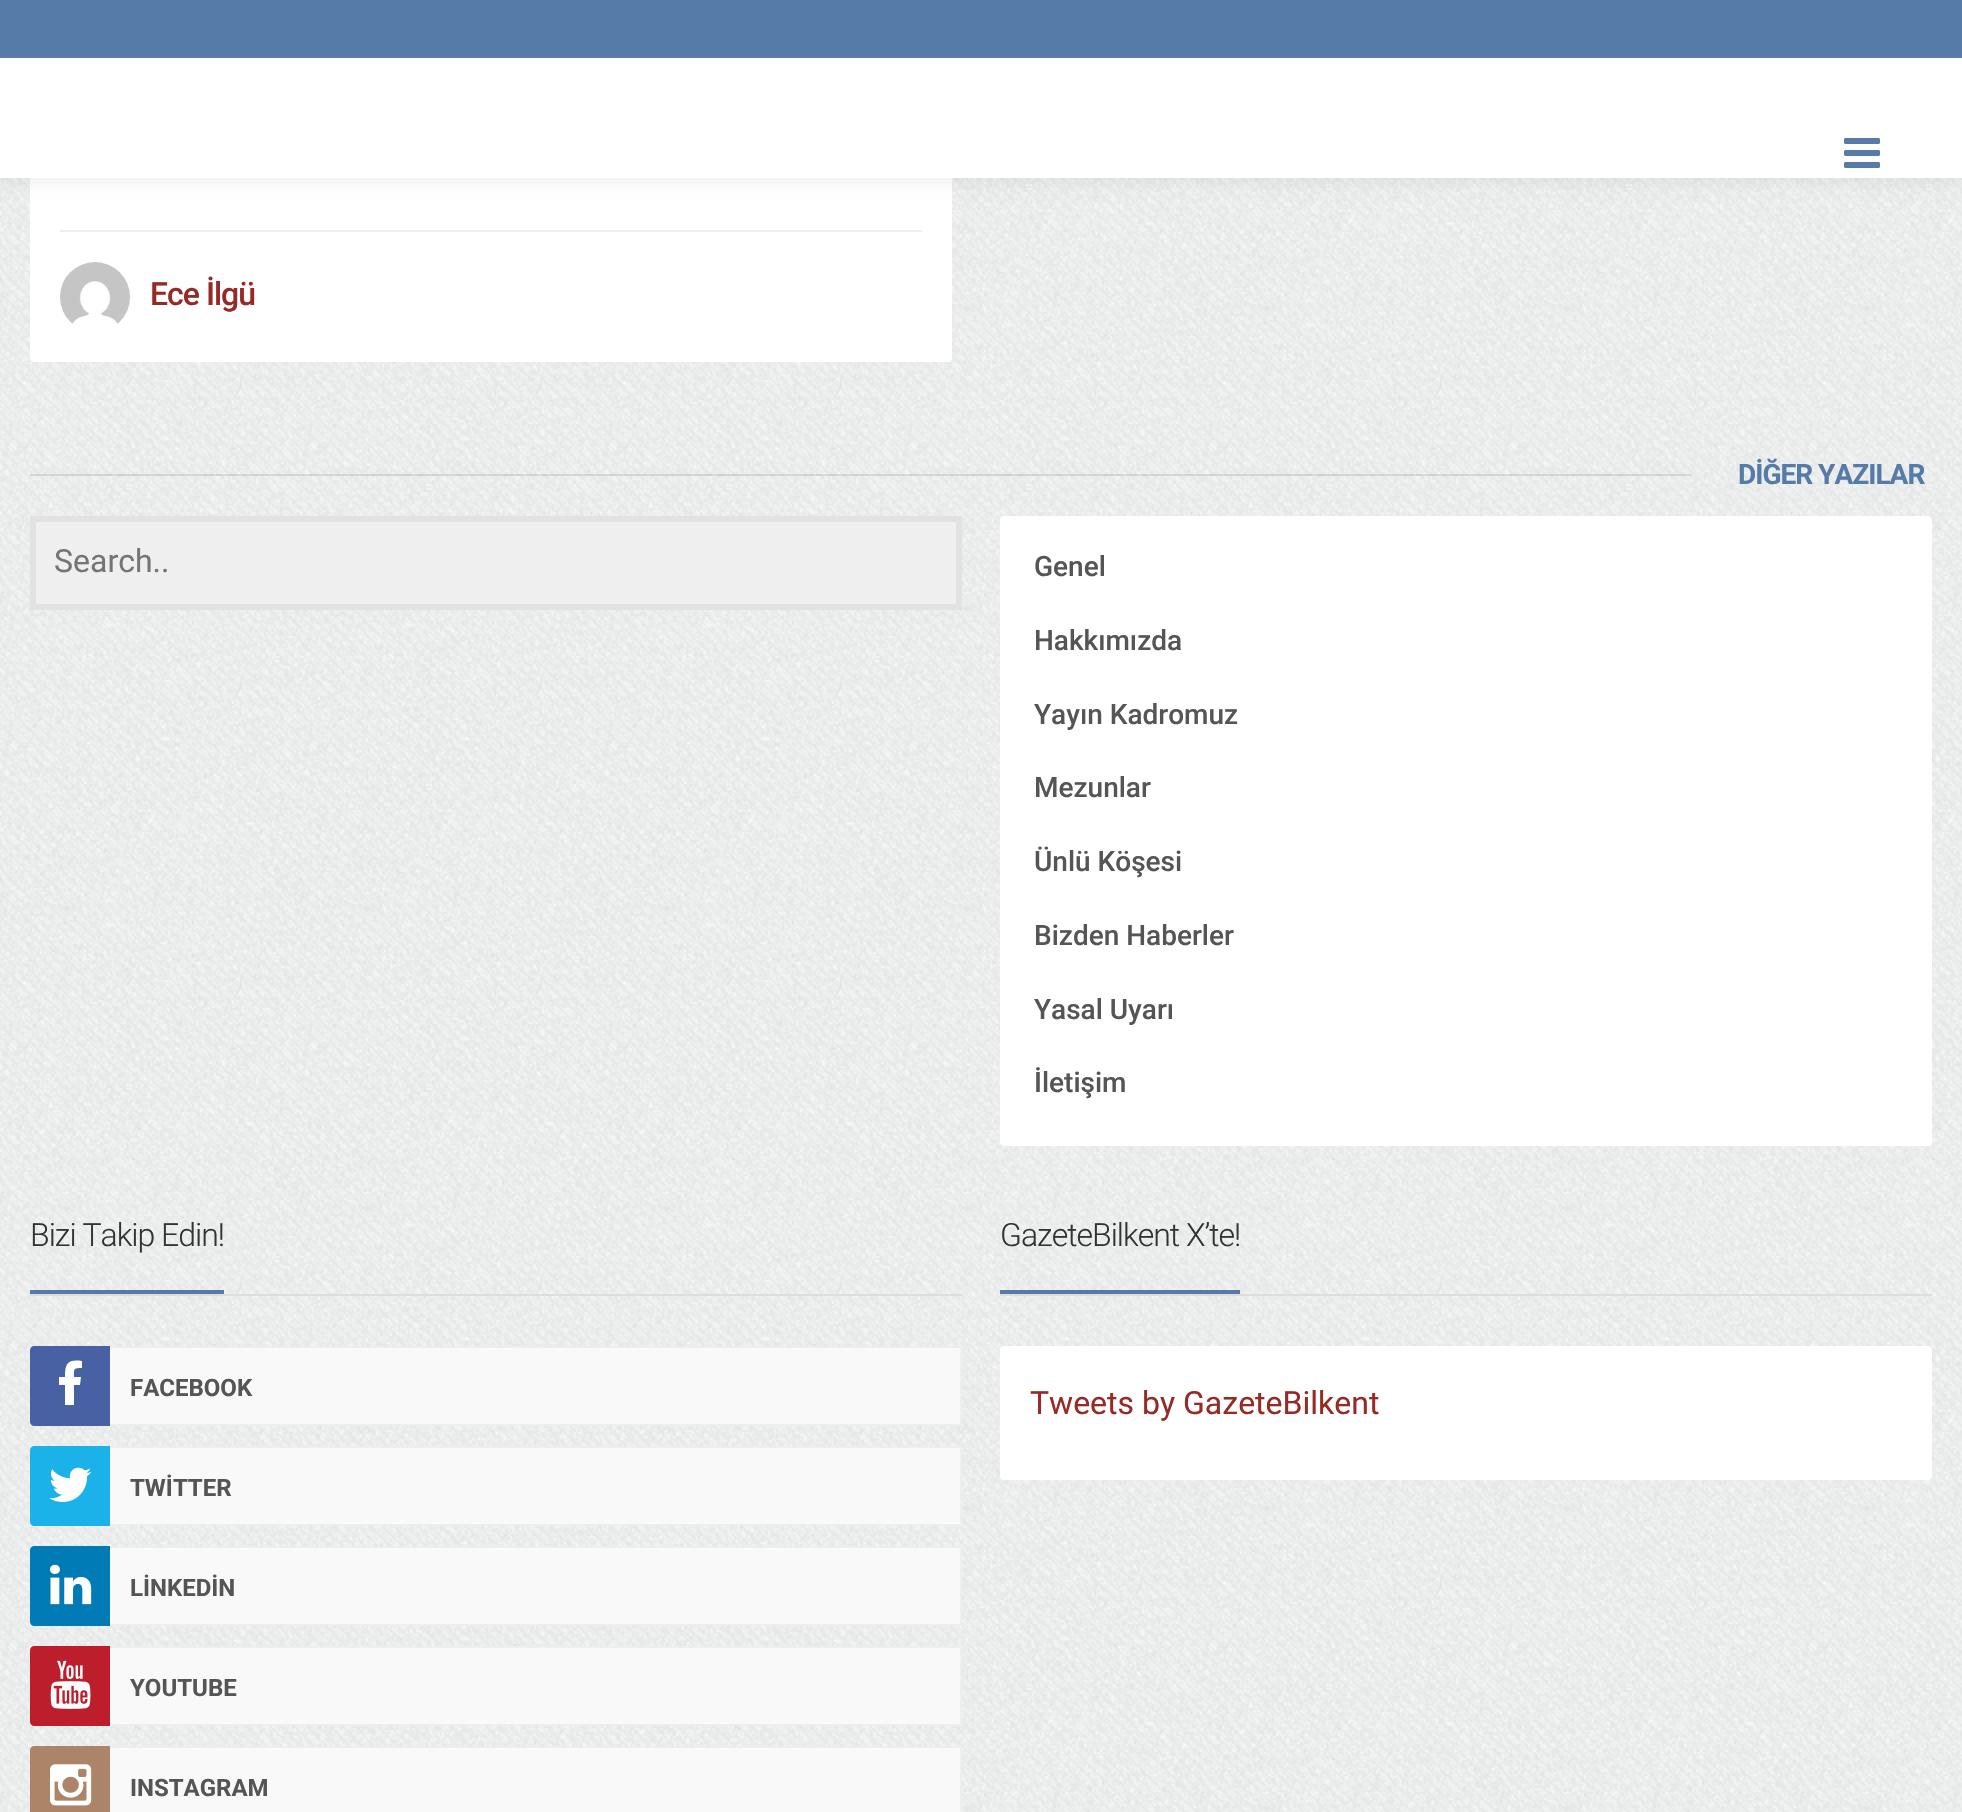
void draw(SkCanvas* canvas) {
  SkPaint paint;
  paint.setAntiAlias(true);
  auto face = [&](const char* family, int weight, float size, bool italic = false) {
    SkFontStyle style(weight, SkFontStyle::kNormal_Width,
      italic ? SkFontStyle::kItalic_Slant : SkFontStyle::kUpright_Slant);
    SkFont result(fontMgr->matchFamilyStyle(family, style), size);
    result.setSubpixel(true);
    return result;
  };
  auto writeSpaced = [&](const char* s, float x, float y, const SkFont& font, const SkPaint& ink, float letter, float word) {
    std::vector<SkGlyphID> glyphs(font.countText(s, strlen(s), SkTextEncoding::kUTF8));
    std::vector<float> xs(glyphs.size());
    font.textToGlyphs(s, strlen(s), SkTextEncoding::kUTF8, glyphs);
    font.getXPos(glyphs, xs, x);
    float extra = 0;
    for (size_t i = 0; i < glyphs.size(); i++) {
      xs[i] += extra;
      extra += letter + word * (glyphs[i] == font.unicharToGlyph(' '));
    }
    canvas->drawTextBlob(SkTextBlob::MakeFromPosHGlyphs(glyphs, xs, y, font), 0, 0, ink);
  };
  auto paste = [&](const char* path, float x, float y, float w, float h) {
    auto image = SkImages::DeferredFromEncodedData(SkData::MakeFromFileName(path));
    canvas->drawImageRect(image, SkRect::MakeXYWH(x, y, w, h), SkSamplingOptions());
  };
  auto shape = [&](const char* data, bool evenOdd = false) {
    SkPath result = *SkParsePath::FromSVGString(data);
    if (evenOdd) result.setFillType(SkPathFillType::kEvenOdd);
    return result;
  };
  canvas->clear(0xffffffff);
  paste("img/1.png", 0, 178, 1962, 1634);
  paint.setColor(0xffffffff);
  canvas->drawRoundRect(SkRect::MakeXYWH(30, -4, 922, 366), 4, 4, paint);
  paint.setColor(0x0d000000);
  paint.setMaskFilter(SkMaskFilter::MakeBlur(kNormal_SkBlurStyle, 5));
  canvas->drawRect(SkRect::MakeXYWH(0, 6, 1962, 178), paint);
  paint.setMaskFilter(nullptr);
  paint.setColor(0xffffffff);
  canvas->drawRect(SkRect::MakeXYWH(0, 58, 1962, 120), paint);
  paint.setColor(0xff567ba9);
  canvas->drawRect(SkRect::MakeXYWH(0, 0, 1962, 58), paint);
  paste("img/2.png", 1844, 138, 36, 30);
  paint.setColor(0xffeeeeee);
  canvas->drawRect(SkRect::MakeXYWH(60, 230, 862, 2), paint);
  paste("img/3.png", 60, 262, 70, 62);
  paint.setColor(0x1a000000);
  canvas->drawRect(SkRect::MakeXYWH(30, 474, 1662, 2), paint);
  paint.setColor(0xffefefef);
  canvas->drawRoundRect(SkRect::MakeXYWH(30, 516, 932, 94), 4, 4, paint);
  paint.setStroke(true);
  paint.setStrokeWidth(6);
  paint.setColor(0x0d000000);
  canvas->drawRect(SkRect::MakeXYWH(33, 519, 926, 88), paint);
  paint.setStroke(false);
  paint.setColor(0xffffffff);
  canvas->drawRoundRect(SkRect::MakeXYWH(1000, 516, 932, 630), 4, 4, paint);
  {
    const struct { float x, y, w, h; SkColor color; } items[] = {
      {30, 1294, 932, 2, 0xffdddddd},
      {30, 1290, 194, 4, 0xff567ba9},
      {110, 1348, 850, 76, 0xfff9f9f9},
    };
    for (auto [x, y, w, h, color] : items) {
      paint.setColor(color);
      canvas->drawRect(SkRect::MakeXYWH(x, y, w, h), paint);
    }
  }
  paint.setStroke(true);
  paint.setStrokeWidth(2);
  paint.setColor(0xffeeeeee);
  canvas->drawRect(SkRect::MakeXYWH(31, 1347, 930, 78), paint);
  paint.setStroke(false);
  paint.setColor(0xff4861a3);
  canvas->drawPath(shape("M34 1346H110V1426H34C32 1426 30 1424 30 1422V1350C30 1348 32 1346 34 1346Z"), paint);
  paint.setColor(0xffffffff);
  canvas->drawPath(shape("M59 1385V1377H65C65 1364 67 1359 82 1361V1368C73 1368 74 1369 74 1377H81L80 1385H74V1405H65V1385Z"), paint);
  paint.setColor(0xfff9f9f9);
  canvas->drawRect(SkRect::MakeXYWH(110, 1448, 850, 76), paint);
  paint.setStroke(true);
  paint.setColor(0xffeeeeee);
  canvas->drawRect(SkRect::MakeXYWH(31, 1447, 930, 78), paint);
  paint.setStroke(false);
  paint.setColor(0xff1bb2e9);
  canvas->drawPath(shape("M34 1446H110V1526H34C32 1526 30 1524 30 1522V1450C30 1448 32 1446 34 1446Z"), paint);
  paste("img/4.png", 49, 1467, 43, 35);
  paint.setColor(0xfff9f9f9);
  canvas->drawRect(SkRect::MakeXYWH(110, 1548, 850, 76), paint);
  paint.setStroke(true);
  paint.setColor(0xffeeeeee);
  canvas->drawRect(SkRect::MakeXYWH(31, 1547, 930, 78), paint);
  paint.setStroke(false);
  paint.setColor(0xff007bb6);
  canvas->drawPath(shape("M34 1546H110V1626H34C32 1626 30 1624 30 1622V1550C30 1548 32 1546 34 1546Z"), paint);
  paste("img/5.png", 50, 1564, 42, 41);
  paint.setColor(0xfff9f9f9);
  canvas->drawRect(SkRect::MakeXYWH(110, 1648, 850, 76), paint);
  paint.setStroke(true);
  paint.setColor(0xffeeeeee);
  canvas->drawRect(SkRect::MakeXYWH(31, 1647, 930, 78), paint);
  paint.setStroke(false);
  paint.setColor(0xffbc1e2c);
  canvas->drawPath(shape("M34 1646H110V1726H34C32 1726 30 1724 30 1722V1650C30 1648 32 1646 34 1646Z"), paint);
  paste("img/6.png", 50, 1660, 41, 49);
  paint.setColor(0xfff9f9f9);
  canvas->drawRect(SkRect::MakeXYWH(110, 1748, 850, 64), paint);
  paint.setStroke(true);
  paint.setColor(0xffeeeeee);
  canvas->drawRect(SkRect::MakeXYWH(31, 1747, 930, 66), paint);
  paint.setStroke(false);
  paint.setColor(0xffac8568);
  canvas->drawPath(shape("M34 1746H110V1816H34C32 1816 30 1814 30 1812V1750C30 1748 32 1746 34 1746Z"), paint);
  paste("img/7.png", 50, 1764, 42, 42);
  paint.setColor(0xffdddddd);
  canvas->drawRect(SkRect::MakeXYWH(1000, 1294, 932, 2), paint);
  paint.setColor(0xff567ba9);
  canvas->drawRect(SkRect::MakeXYWH(1000, 1290, 240, 4), paint);
  paint.setColor(0xffffffff);
  canvas->drawRoundRect(SkRect::MakeXYWH(1000, 1346, 932, 134), 4, 4, paint);
  auto f0 = face("Roboto", 500, 32);
  paint.setColor(0xff962a27);
  writeSpaced("Ece İlgü", 150, 305, f0, paint, -1, 0);
  auto f1 = face("Roboto", 700, 28);
  paint.setColor(0xff567ba9);
  writeSpaced("DİĞER YAZILAR", 1738, 484, f1, paint, -1, 0);
  auto f2 = face("Roboto", 400, 32);
  paint.setColor(0xff757575);
  canvas->drawString("Search..", 54, 572, f2, paint);
  auto f3 = face("Roboto", 500, 28);
  paint.setColor(0xff555555);
  {
    const struct { const char* s; float x, y; } items[] = {
      {"Genel", 1034, 576},
      {"Hakkımızda", 1034, 650},
      {"Yayın Kadromuz", 1034, 724},
      {"Mezunlar", 1034, 797},
      {"Ünlü Köşesi", 1034, 871},
      {"Bizden Haberler", 1034, 945},
      {"Yasal Uyarı", 1034, 1019},
      {"İletişim", 1034, 1092},
    };
    for (auto [s, x, y] : items) {
      canvas->drawString(s, x, y, f3, paint);
    }
  }
  auto f4 = face("Roboto", 300, 32);
  paint.setColor(0xff333333);
  writeSpaced("Bizi Takip Edin!", 30, 1246, f4, paint, -1, 0);
  auto f5 = face("Roboto", 700, 24);
  paint.setColor(0xff555555);
  {
    const struct { const char* s; float x, y; } items[] = {
      {"FACEBOOK", 130, 1396},
      {"TWİTTER", 130, 1496},
      {"LİNKEDİN", 130, 1596},
      {"YOUTUBE", 130, 1696},
      {"INSTAGRAM", 130, 1796},
    };
    for (auto [s, x, y] : items) {
      canvas->drawString(s, x, y, f5, paint);
    }
  }
  paint.setColor(0xff333333);
  writeSpaced("GazeteBilkent X’te!", 1000, 1246, f4, paint, -1, 0);
  paint.setColor(0xff962a27);
  canvas->drawString("Tweets by GazeteBilkent", 1030, 1414, f2, paint);
}
